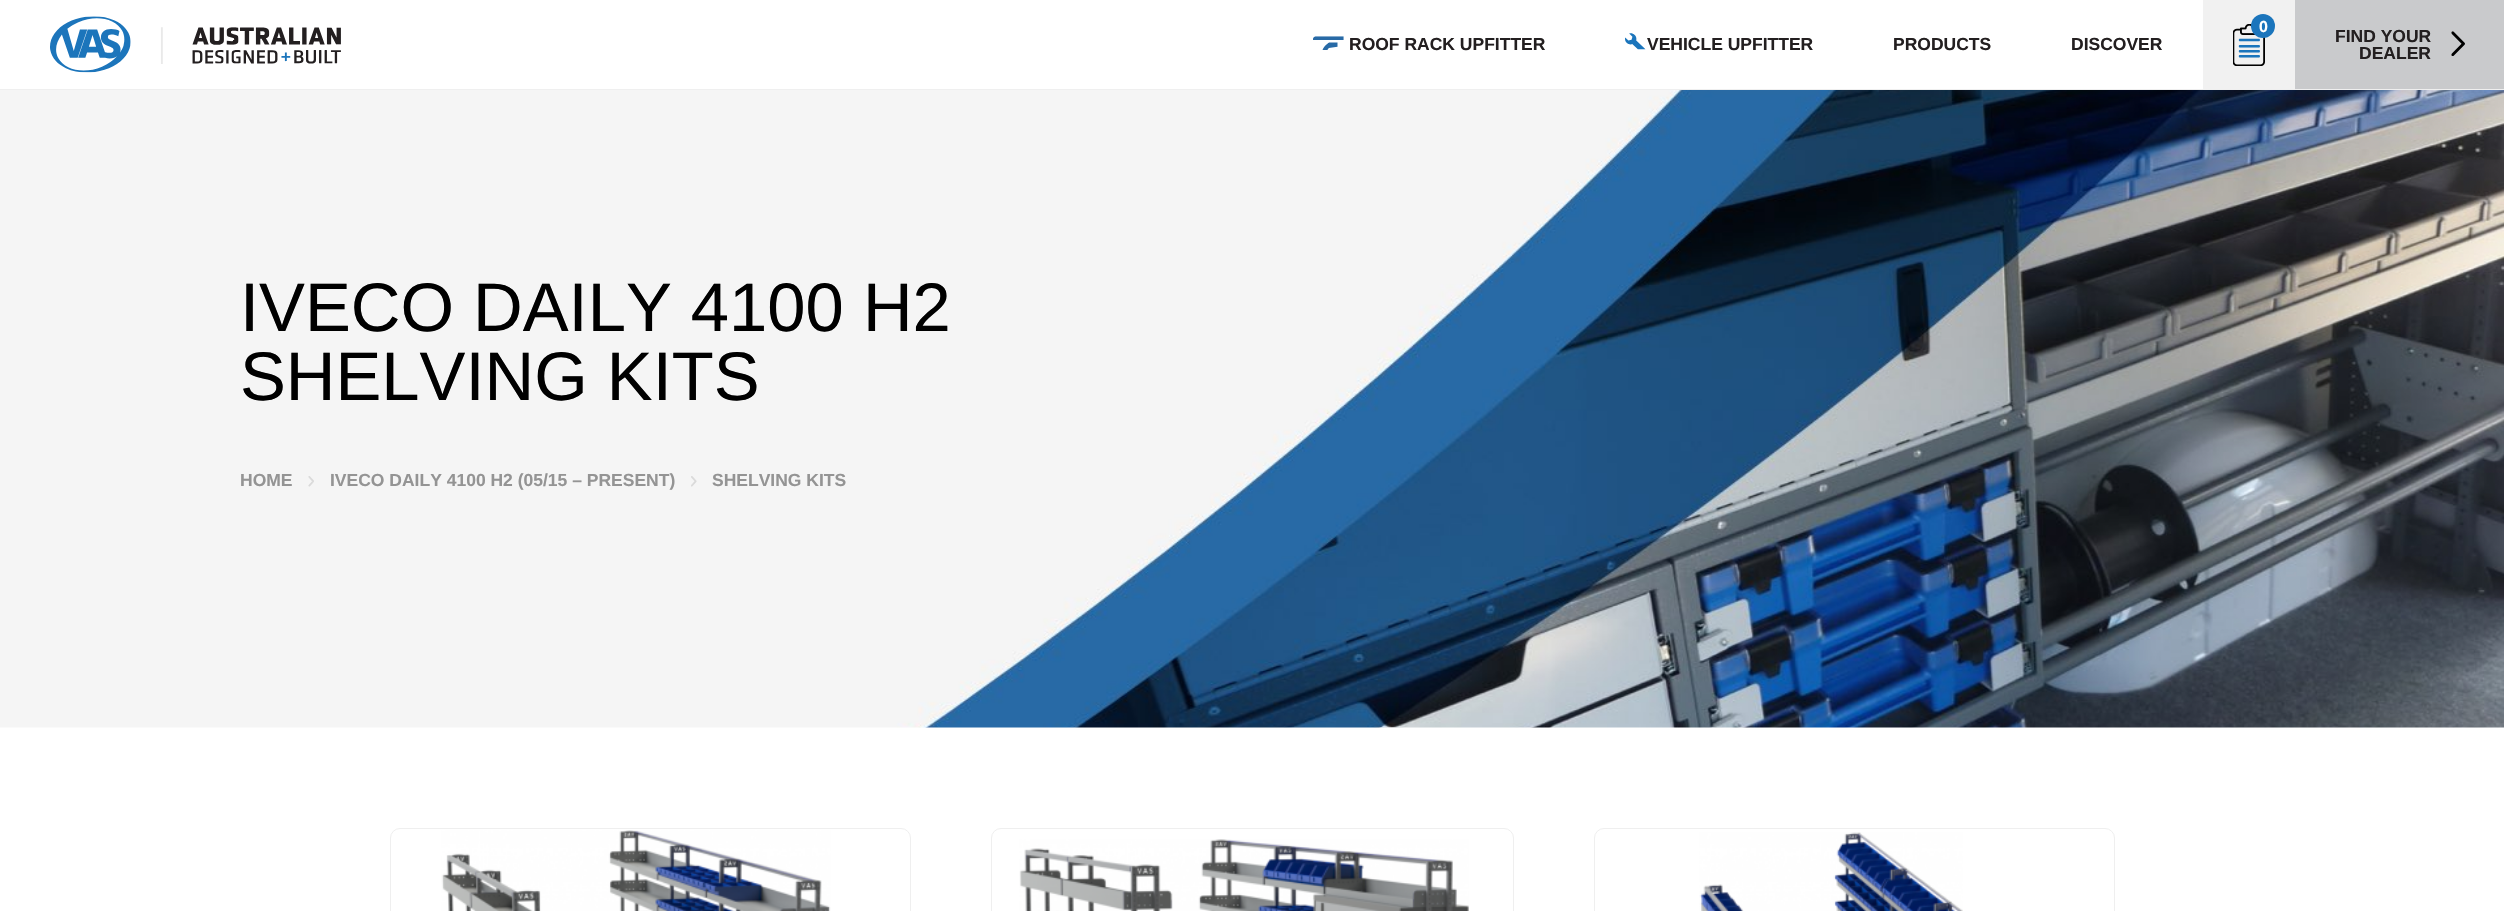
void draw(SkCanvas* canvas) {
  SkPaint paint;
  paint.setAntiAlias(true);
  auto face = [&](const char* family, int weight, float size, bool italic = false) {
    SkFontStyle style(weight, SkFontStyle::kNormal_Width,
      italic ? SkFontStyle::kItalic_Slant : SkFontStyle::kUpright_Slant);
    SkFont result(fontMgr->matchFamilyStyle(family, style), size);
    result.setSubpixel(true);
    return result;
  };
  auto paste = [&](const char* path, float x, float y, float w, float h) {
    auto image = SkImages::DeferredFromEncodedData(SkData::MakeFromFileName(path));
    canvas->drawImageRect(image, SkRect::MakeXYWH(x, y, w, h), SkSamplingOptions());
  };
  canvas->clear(0xffffffff);
  paint.setColor(0xffefefef);
  canvas->drawRect(SkRect::MakeXYWH(0, 89, 2504, 1), paint);
  paste("img/1.png", 50, 16, 291, 57);
  paint.setColor(0xfff1f1f1);
  canvas->drawRect(SkRect::MakeXYWH(2203, 0, 92, 89), paint);
  paste("img/2.png", 2233, 24, 32, 42);
  paint.setColor(0xff1b75bc);
  canvas->drawCircle(2263, 26, 12, paint);
  paste("img/3.png", 1313, 36, 31, 14);
  paste("img/4.png", 1625, 33, 21, 17);
  paint.setColor(0xffc9cacc);
  canvas->drawRect(SkRect::MakeXYWH(2295, 0, 209, 89), paint);
  paste("img/5.png", 2451, 31, 14, 25);
  paste("img/6.png", 0, 90, 2504, 638);
  paste("img/7.png", 308, 476, 6, 11);
  paste("img/8.png", 691, 476, 6, 11);
  paint.setStroke(true);
  paint.setStrokeWidth(1);
  paint.setColor(0xffefefef);
  canvas->drawRoundRect(SkRect::MakeXYWH(390.5f, 828.5f, 520, 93), 9.5f, 9.5f, paint);
  paste("img/9.png", 441, 830, 390, 81);
  canvas->drawRoundRect(SkRect::MakeXYWH(991.5f, 828.5f, 522, 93), 9.5f, 9.5f, paint);
  paste("img/10.png", 1019, 839, 450, 72);
  canvas->drawRoundRect(SkRect::MakeXYWH(1594.5f, 828.5f, 520, 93), 9.5f, 9.5f, paint);
  paste("img/11.png", 1699, 832, 264, 79);
  auto f0 = face("Liberation Sans", 700, 16);
  paint.setStroke(false);
  paint.setColor(0xffffffff);
  canvas->drawString("0", 2259, 32, f0, paint);
  auto f1 = face("Liberation Sans", 700, 17.5f);
  paint.setColor(0xff231f20);
  {
    const struct { const char* s; float x, y; } items[] = {
      {"ROOF RACK UPFITTER", 1349, 50},
      {"VEHICLE UPFITTER", 1647, 50},
      {"PRODUCTS", 1893, 50},
      {"DISCOVER", 2071, 50},
      {"FIND YOUR", 2335, 42},
      {"DEALER", 2359, 59},
    };
    for (auto [s, x, y] : items) {
      canvas->drawString(s, x, y, f1, paint);
    }
  }
  auto f2 = face("Liberation Sans", 400, 68.75f);
  paint.setColor(0xff000000);
  canvas->drawString("IVECO DAILY 4100 H2", 240, 331, f2, paint);
  canvas->drawString("SHELVING KITS", 240, 400, f2, paint);
  paint.setColor(0xff949494);
  {
    const struct { const char* s; float x, y; } items[] = {
      {"HOME", 240, 486},
      {"IVECO DAILY 4100 H2 (05/15 – PRESENT)", 330, 486},
      {"SHELVING KITS", 712, 486},
    };
    for (auto [s, x, y] : items) {
      canvas->drawString(s, x, y, f1, paint);
    }
  }
}
